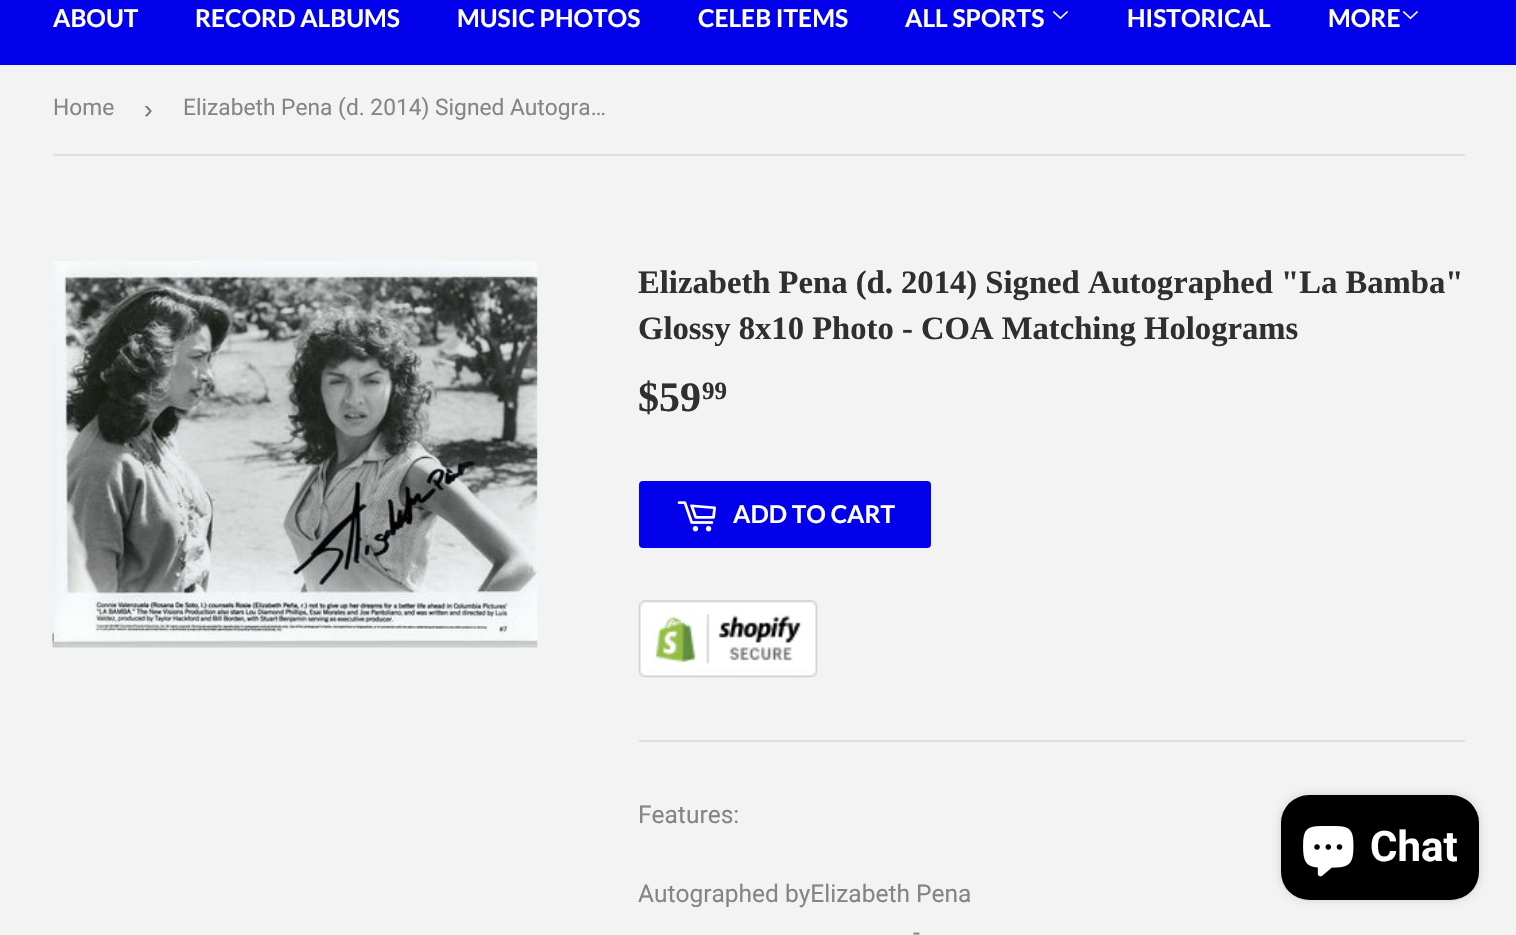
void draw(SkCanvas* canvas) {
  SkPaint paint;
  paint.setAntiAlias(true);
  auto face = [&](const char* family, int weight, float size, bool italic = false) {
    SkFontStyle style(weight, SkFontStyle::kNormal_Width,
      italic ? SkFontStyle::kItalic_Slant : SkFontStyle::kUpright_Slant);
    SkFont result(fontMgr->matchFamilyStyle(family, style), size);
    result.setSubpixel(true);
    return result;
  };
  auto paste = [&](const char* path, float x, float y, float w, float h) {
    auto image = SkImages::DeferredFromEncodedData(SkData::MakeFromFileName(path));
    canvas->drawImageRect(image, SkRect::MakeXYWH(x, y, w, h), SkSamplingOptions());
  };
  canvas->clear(0xfff3f3f3);
  paint.setColor(0xff0300eb);
  canvas->drawRect(SkRect::MakeXYWH(0, 0, 1516, 65), paint);
  paste("img/1.png", 1053, 11, 15, 9);
  paste("img/1.png", 1403, 11, 15, 9);
  paint.setColor(0xffdedede);
  canvas->drawRect(SkRect::MakeXYWH(53, 154, 1412, 2), paint);
  paste("img/2.png", 52, 261, 486, 387);
  paint.setColor(0xff0300eb);
  canvas->drawRoundRect(SkRect::MakeXYWH(639, 481, 292, 67), 4, 4, paint);
  paste("img/3.png", 677, 501, 39, 31);
  paste("img/4.png", 638, 600, 180, 78);
  paint.setColor(0xffdedede);
  canvas->drawRect(SkRect::MakeXYWH(639, 740, 826, 2), paint);
  paint.setColor(0x26000000);
  paint.setMaskFilter(SkMaskFilter::MakeBlur(kNormal_SkBlurStyle, 4.5f));
  canvas->drawRoundRect(SkRect::MakeXYWH(1281, 795, 198, 105), 28, 28, paint);
  paint.setMaskFilter(nullptr);
  paint.setColor(0xff000000);
  canvas->drawRoundRect(SkRect::MakeXYWH(1281, 795, 198, 105), 28, 28, paint);
  paste("img/5.png", 1303, 826, 51, 51);
  auto f0 = face("Lato", 700, 24.5f);
  paint.setColor(0xffffffff);
  {
    const struct { const char* s; float x, y; } items[] = {
      {"ABOUT", 53, 27},
      {"RECORD ALBUMS", 195, 27},
      {"MUSIC PHOTOS", 457, 27},
      {"CELEB ITEMS", 698, 27},
      {"ALL SPORTS", 905, 27},
      {"HISTORICAL", 1127, 27},
      {"MORE", 1328, 27},
    };
    for (auto [s, x, y] : items) {
      canvas->drawString(s, x, y, f0, paint);
    }
  }
  auto f1 = face("Roboto", 400, 22.75f);
  paint.setColor(0xff858585);
  canvas->drawString("Home", 53, 115, f1, paint);
  auto f2 = face("Liberation Sans", 400, 26);
  paint.setColor(0xff767676);
  canvas->drawString("›", 144, 118, f2, paint);
  paint.setColor(0xff858585);
  canvas->drawString("Elizabeth Pena (d. 2014) Signed Autogra…", 183, 115, f1, paint);
  auto f3 = face("Liberation Serif", 700, 32.65f);
  paint.setColor(0xff2f2f2f);
  canvas->drawString("Elizabeth Pena (d. 2014) Signed Autographed \"La Bamba\"", 638, 293, f3, paint);
  canvas->drawString("Glossy 8x10 Photo - COA Matching Holograms", 638, 339, f3, paint);
  auto f4 = face("Liberation Serif", 700, 42);
  canvas->drawString("$59", 638, 411, f4, paint);
  auto f5 = face("Liberation Serif", 700, 25);
  canvas->drawString("99", 702, 399, f5, paint);
  paint.setColor(0xffffffff);
  canvas->drawString("ADD TO CART", 733, 523, f0, paint);
  auto f6 = face("Roboto", 400, 24.5f);
  paint.setColor(0xff858585);
  {
    const struct { const char* s; float x, y; } items[] = {
      {"Features:", 638, 823},
      {"Autographed byElizabeth Pena", 638, 902},
      {"-", 913, 941},
    };
    for (auto [s, x, y] : items) {
      canvas->drawString(s, x, y, f6, paint);
    }
  }
  auto f7 = face("Roboto", 700, 42);
  paint.setColor(0xffffffff);
  canvas->drawString("Chat", 1370, 861, f7, paint);
}
